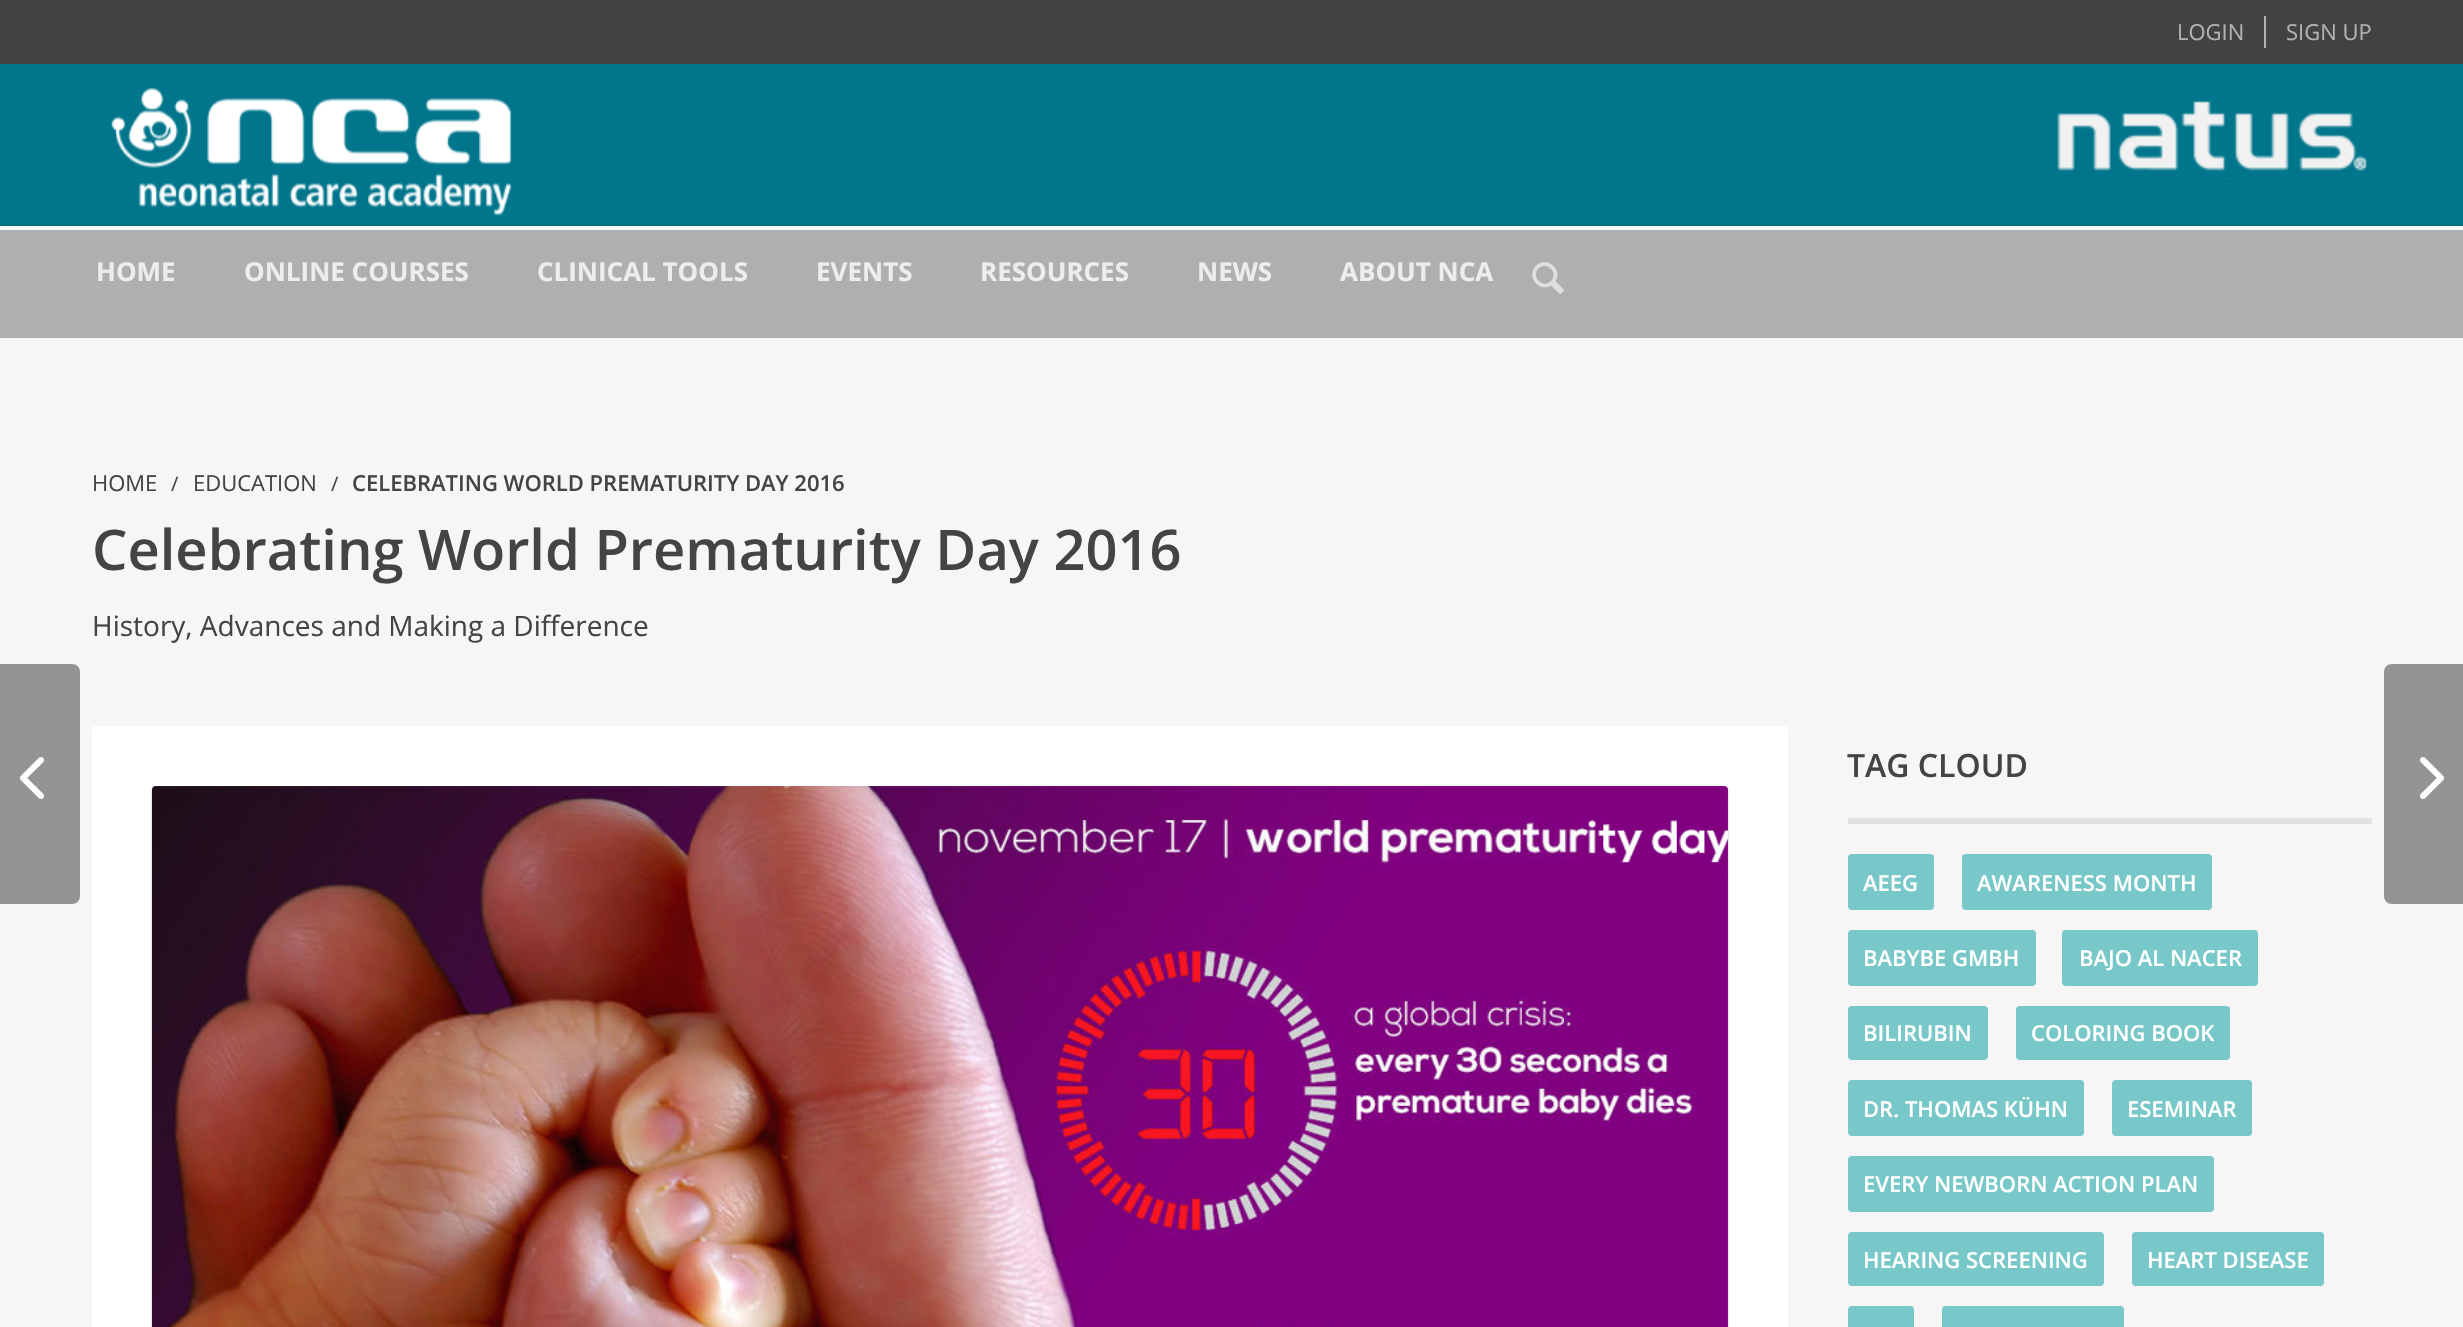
void draw(SkCanvas* canvas) {
  SkPaint paint;
  paint.setAntiAlias(true);
  auto face = [&](const char* family, int weight, float size, bool italic = false) {
    SkFontStyle style(weight, SkFontStyle::kNormal_Width,
      italic ? SkFontStyle::kItalic_Slant : SkFontStyle::kUpright_Slant);
    SkFont result(fontMgr->matchFamilyStyle(family, style), size);
    result.setSubpixel(true);
    return result;
  };
  auto paste = [&](const char* path, float x, float y, float w, float h) {
    auto image = SkImages::DeferredFromEncodedData(SkData::MakeFromFileName(path));
    canvas->drawImageRect(image, SkRect::MakeXYWH(x, y, w, h), SkSamplingOptions());
  };
  auto shape = [&](const char* data, bool evenOdd = false) {
    SkPath result = *SkParsePath::FromSVGString(data);
    if (evenOdd) result.setFillType(SkPathFillType::kEvenOdd);
    return result;
  };
  canvas->clear(0xfff6f6f6);
  {
    const struct { float x, y, w, h; SkColor color; } items[] = {
      {0, 0, 2463, 64, 0xff424242},
      {2264, 16, 2, 32, 0xffb2b2b2},
      {0, 64, 2463, 160, 0xff00758b},
      {0, 224, 2463, 2, 0xff006c80},
    };
    for (auto [x, y, w, h, color] : items) {
      paint.setColor(color);
      canvas->drawRect(SkRect::MakeXYWH(x, y, w, h), paint);
    }
  }
  paste("img/1.png", 111, 88, 401, 128);
  paste("img/2.png", 2057, 101, 310, 79);
  paint.setColor(0xffafafaf);
  canvas->drawRect(SkRect::MakeXYWH(0, 230, 2463, 108), paint);
  paste("img/3.png", 1532, 262, 32, 32);
  paint.setColor(0xff949494);
  canvas->drawPath(shape("M-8 664H72C76.5 664 80 667.5 80 672V896C80 900.5 76.5 904 72 904H-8Z"), paint);
  paste("img/4.png", 20, 757, 24, 42);
  canvas->drawPath(shape("M2392 664H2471V904H2392C2387.5 904 2384 900.5 2384 896V672C2384 667.5 2387.5 664 2392 664Z"), paint);
  paste("img/5.png", 2420, 757, 24, 42);
  paint.setColor(0xffffffff);
  canvas->drawRoundRect(SkRect::MakeXYWH(92, 726, 1696, 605), 4, 4, paint);
  paint.setColor(0xffaaaaaa);
  paint.setMaskFilter(SkMaskFilter::MakeBlur(kNormal_SkBlurStyle, 1));
  canvas->drawRoundRect(SkRect::MakeXYWH(152, 788, 1576, 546), 4, 4, paint);
  paint.setMaskFilter(nullptr);
  paste("img/6.png", 152, 786, 1576, 541);
  paint.setColor(0xffe2e2e2);
  canvas->drawRect(SkRect::MakeXYWH(1848, 818, 524, 6), paint);
  paint.setColor(0xff78c8c9);
  canvas->drawRoundRect(SkRect::MakeXYWH(1848, 854, 86, 56), 4, 4, paint);
  canvas->drawRoundRect(SkRect::MakeXYWH(1962, 854, 250, 56), 4, 4, paint);
  canvas->drawRoundRect(SkRect::MakeXYWH(1848, 930, 188, 56), 4, 4, paint);
  canvas->drawRoundRect(SkRect::MakeXYWH(2062, 930, 196, 56), 4, 4, paint);
  canvas->drawRoundRect(SkRect::MakeXYWH(1848, 1006, 140, 54), 4, 4, paint);
  canvas->drawRoundRect(SkRect::MakeXYWH(2016, 1006, 214, 54), 4, 4, paint);
  canvas->drawRoundRect(SkRect::MakeXYWH(1848, 1080, 236, 56), 4, 4, paint);
  canvas->drawRoundRect(SkRect::MakeXYWH(2112, 1080, 140, 56), 4, 4, paint);
  canvas->drawRoundRect(SkRect::MakeXYWH(1848, 1156, 366, 56), 4, 4, paint);
  canvas->drawRoundRect(SkRect::MakeXYWH(1848, 1232, 256, 54), 4, 4, paint);
  canvas->drawRoundRect(SkRect::MakeXYWH(2132, 1232, 192, 54), 4, 4, paint);
  canvas->drawRoundRect(SkRect::MakeXYWH(1848, 1306, 66, 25), 4, 4, paint);
  canvas->drawRoundRect(SkRect::MakeXYWH(1942, 1306, 182, 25), 4, 4, paint);
  auto f0 = face("Open Sans", 400, 22);
  paint.setColor(0xffb2b2b2);
  canvas->drawString("LOGIN", 2177, 40, f0, paint);
  canvas->drawString("SIGN UP", 2286, 40, f0, paint);
  auto f1 = face("Open Sans", 700, 26);
  paint.setColor(0xffededed);
  {
    const struct { const char* s; float x, y; } items[] = {
      {"HOME", 96, 281},
      {"ONLINE COURSES", 244, 281},
      {"CLINICAL TOOLS", 537, 281},
      {"EVENTS", 816, 281},
      {"RESOURCES", 980, 281},
      {"NEWS", 1197, 281},
      {"ABOUT NCA", 1340, 281},
    };
    for (auto [s, x, y] : items) {
      canvas->drawString(s, x, y, f1, paint);
    }
  }
  paint.setColor(0xff444444);
  canvas->drawString("HOME", 92, 491, f0, paint);
  auto f2 = face("Open Sans", 400, 20);
  canvas->drawString("/", 171, 491, f2, paint);
  canvas->drawString("EDUCATION", 193, 491, f0, paint);
  canvas->drawString("/", 331, 491, f2, paint);
  auto f3 = face("Open Sans", 600, 22);
  canvas->drawString("CELEBRATING WORLD PREMATURITY DAY 2016", 352, 491, f3, paint);
  auto f4 = face("Open Sans", 600, 56);
  canvas->drawString("Celebrating World Prematurity Day 2016", 92, 570, f4, paint);
  auto f5 = face("Open Sans", 400, 28);
  canvas->drawString("History, Advances and Making a Difference", 92, 636, f5, paint);
  auto f6 = face("Open Sans", 600, 32);
  canvas->drawString("TAG CLOUD", 1847, 777, f6, paint);
  paint.setColor(0xffffffff);
  {
    const struct { const char* s; float x, y; } items[] = {
      {"AEEG", 1863, 891},
      {"AWARENESS MONTH", 1977, 891},
      {"BABYBE GMBH", 1863, 966},
      {"BAJO AL NACER", 2079, 966},
      {"BILIRUBIN", 1863, 1041},
      {"COLORING BOOK", 2031, 1041},
      {"DR. THOMAS KÜHN", 1863, 1117},
      {"ESEMINAR", 2127, 1117},
      {"EVERY NEWBORN ACTION PLAN", 1863, 1192},
      {"HEARING SCREENING", 1863, 1268},
      {"HEART DISEASE", 2147, 1268},
    };
    for (auto [s, x, y] : items) {
      canvas->drawString(s, x, y, f3, paint);
    }
  }
}
